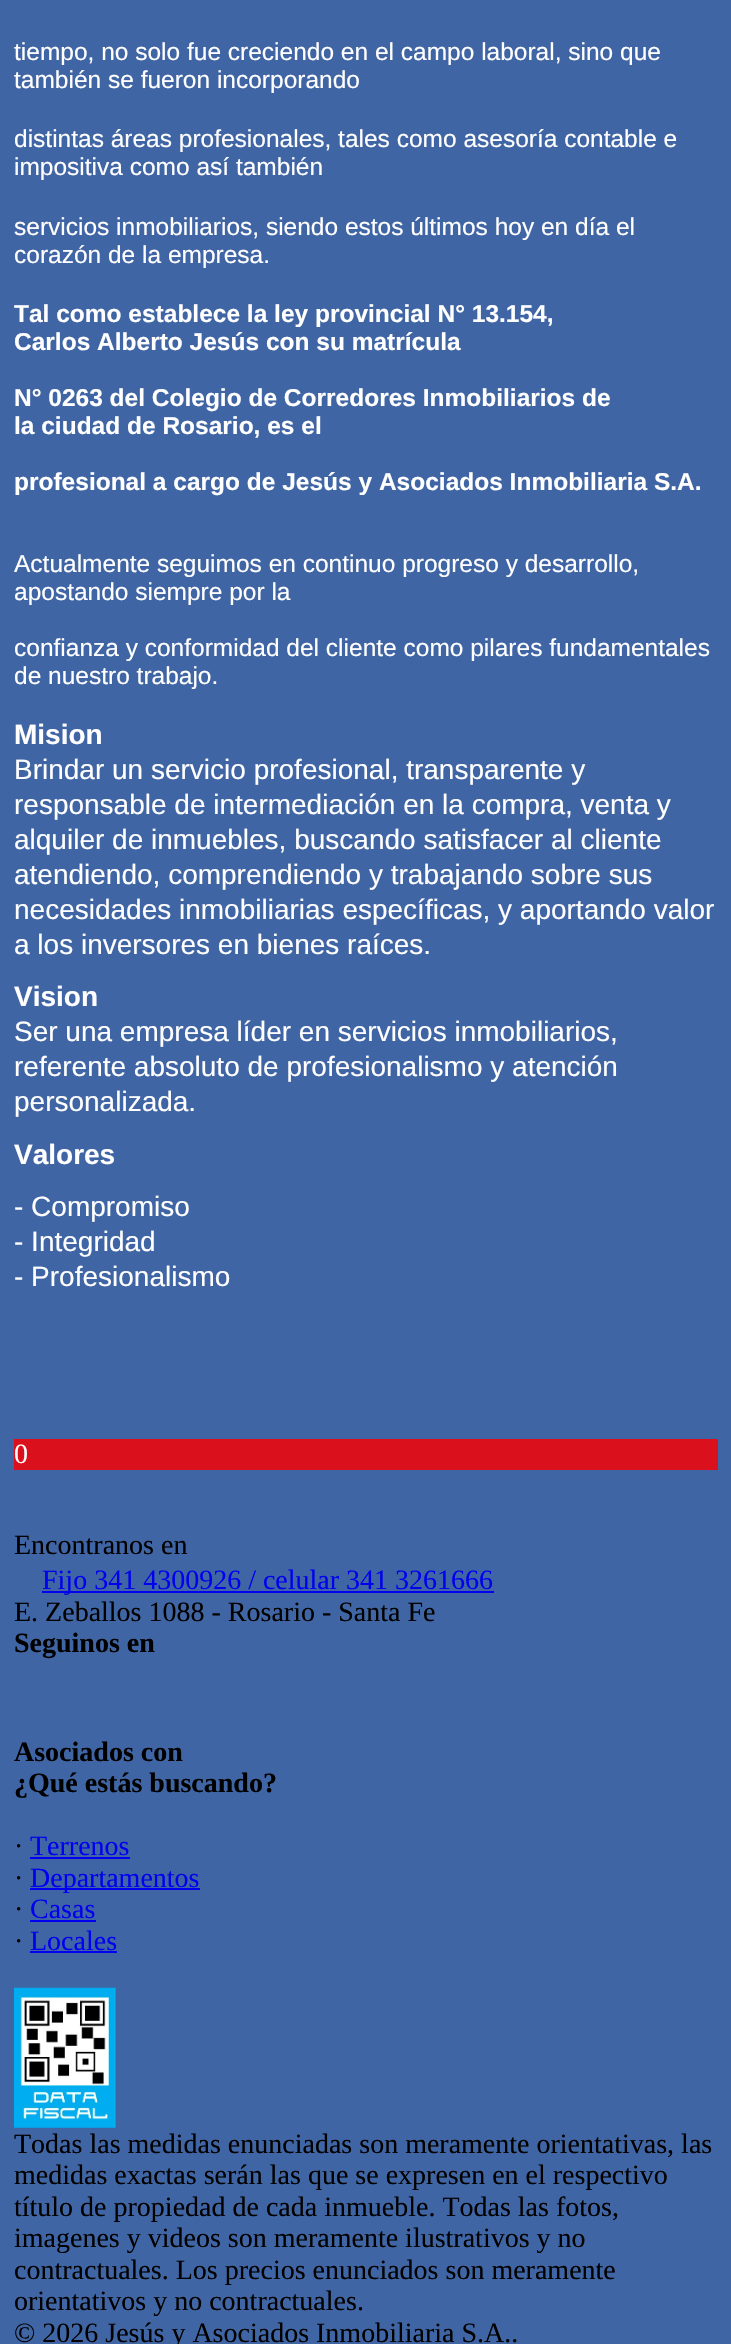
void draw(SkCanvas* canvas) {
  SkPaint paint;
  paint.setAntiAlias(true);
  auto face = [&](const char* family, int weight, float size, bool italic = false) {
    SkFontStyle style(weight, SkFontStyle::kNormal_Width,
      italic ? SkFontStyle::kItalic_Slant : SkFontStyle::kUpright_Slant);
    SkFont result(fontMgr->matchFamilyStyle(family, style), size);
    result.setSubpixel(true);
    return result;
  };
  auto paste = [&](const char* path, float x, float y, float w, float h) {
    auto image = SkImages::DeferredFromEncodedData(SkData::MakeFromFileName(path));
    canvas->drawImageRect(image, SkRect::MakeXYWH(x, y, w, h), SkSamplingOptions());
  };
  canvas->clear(0xff4065a4);
  {
    const struct { float x, y, w, h; SkColor color; } items[] = {
      {14, 1439, 704, 31, 0xffda111d},
      {42, 1591, 452, 2, 0xff0000ee},
      {30, 1857, 100, 2, 0xff0000ee},
      {30, 1888, 170, 2, 0xff0000ee},
      {30, 1920, 66, 2, 0xff0000ee},
      {30, 1951, 87, 2, 0xff0000ee},
    };
    for (auto [x, y, w, h, color] : items) {
      paint.setColor(color);
      canvas->drawRect(SkRect::MakeXYWH(x, y, w, h), paint);
    }
  }
  paste("img/1.png", 14, 1987, 102, 141);
  auto f0 = face("Liberation Sans", 400, 24.5f);
  paint.setColor(0xffffffff);
  {
    const struct { const char* s; float x, y; } items[] = {
      {"tiempo, no solo fue creciendo en el campo laboral, sino que", 14, 60},
      {"también se fueron incorporando", 14, 88},
      {"distintas áreas profesionales, tales como asesoría contable e", 14, 147},
      {"impositiva como así también", 14, 175},
      {"servicios inmobiliarios, siendo estos últimos hoy en día el", 14, 235},
      {"corazón de la empresa.", 14, 263},
    };
    for (auto [s, x, y] : items) {
      canvas->drawString(s, x, y, f0, paint);
    }
  }
  auto f1 = face("Liberation Sans", 700, 24.5f);
  {
    const struct { const char* s; float x, y; } items[] = {
      {"Tal como establece la ley provincial N° 13.154,", 14, 322},
      {"Carlos Alberto Jesús con su matrícula", 14, 350},
      {"N° 0263 del Colegio de Corredores Inmobiliarios de", 14, 406},
      {"la ciudad de Rosario, es el", 14, 434},
      {"profesional a cargo de Jesús y Asociados Inmobiliaria S.A.", 14, 490},
    };
    for (auto [s, x, y] : items) {
      canvas->drawString(s, x, y, f1, paint);
    }
  }
  {
    const struct { const char* s; float x, y; } items[] = {
      {"Actualmente seguimos en continuo progreso y desarrollo,", 14, 572},
      {"apostando siempre por la", 14, 600},
      {"confianza y conformidad del cliente como pilares fundamentales", 14, 656},
      {"de nuestro trabajo.", 14, 684},
    };
    for (auto [s, x, y] : items) {
      canvas->drawString(s, x, y, f0, paint);
    }
  }
  auto f2 = face("Liberation Sans", 700, 28);
  canvas->drawString("Mision", 14, 744, f2, paint);
  auto f3 = face("Liberation Sans", 400, 28);
  {
    const struct { const char* s; float x, y; } items[] = {
      {"Brindar un servicio profesional, transparente y", 14, 779},
      {"responsable de intermediación en la compra, venta y", 14, 814},
      {"alquiler de inmuebles, buscando satisfacer al cliente", 14, 849},
      {"atendiendo, comprendiendo y trabajando sobre sus", 14, 884},
      {"necesidades inmobiliarias específicas, y aportando valor", 14, 919},
      {"a los inversores en bienes raíces.", 14, 954},
    };
    for (auto [s, x, y] : items) {
      canvas->drawString(s, x, y, f3, paint);
    }
  }
  canvas->drawString("Vision", 14, 1006, f2, paint);
  {
    const struct { const char* s; float x, y; } items[] = {
      {"Ser una empresa líder en servicios inmobiliarios,", 14, 1041},
      {"referente absoluto de profesionalismo y atención", 14, 1076},
      {"personalizada.", 14, 1111},
    };
    for (auto [s, x, y] : items) {
      canvas->drawString(s, x, y, f3, paint);
    }
  }
  canvas->drawString("Valores", 14, 1164, f2, paint);
  {
    const struct { const char* s; float x, y; } items[] = {
      {"- Compromiso", 14, 1216},
      {"- Integridad", 14, 1251},
      {"- Profesionalismo", 14, 1286},
    };
    for (auto [s, x, y] : items) {
      canvas->drawString(s, x, y, f3, paint);
    }
  }
  auto f4 = face("Liberation Serif", 400, 28);
  canvas->drawString("0", 14, 1463, f4, paint);
  paint.setColor(0xff000000);
  canvas->drawString("Encontranos en", 14, 1554, f4, paint);
  paint.setColor(0xff0000ee);
  canvas->drawString("Fijo 341 4300926 / celular 341 3261666", 42, 1589, f4, paint);
  paint.setColor(0xff000000);
  canvas->drawString("E. Zeballos 1088 - Rosario - Santa Fe", 14, 1621, f4, paint);
  auto f5 = face("Liberation Serif", 700, 28);
  {
    const struct { const char* s; float x, y; } items[] = {
      {"Seguinos en", 14, 1652},
      {"Asociados con", 14, 1761},
      {"¿Qué estás buscando?", 14, 1792},
    };
    for (auto [s, x, y] : items) {
      canvas->drawString(s, x, y, f5, paint);
    }
  }
  canvas->drawString("·", 14, 1855, f4, paint);
  paint.setColor(0xff0000ee);
  canvas->drawString("Terrenos", 30, 1855, f4, paint);
  paint.setColor(0xff000000);
  canvas->drawString("·", 14, 1887, f4, paint);
  paint.setColor(0xff0000ee);
  canvas->drawString("Departamentos", 30, 1887, f4, paint);
  paint.setColor(0xff000000);
  canvas->drawString("·", 14, 1918, f4, paint);
  paint.setColor(0xff0000ee);
  canvas->drawString("Casas", 30, 1918, f4, paint);
  paint.setColor(0xff000000);
  canvas->drawString("·", 14, 1950, f4, paint);
  paint.setColor(0xff0000ee);
  canvas->drawString("Locales", 30, 1950, f4, paint);
  paint.setColor(0xff000000);
  {
    const struct { const char* s; float x, y; } items[] = {
      {"Todas las medidas enunciadas son meramente orientativas, las", 14, 2153},
      {"medidas exactas serán las que se expresen en el respectivo", 14, 2184},
      {"título de propiedad de cada inmueble. Todas las fotos,", 14, 2216},
      {"imagenes y videos son meramente ilustrativos y no", 14, 2247},
      {"contractuales. Los precios enunciados son meramente", 14, 2279},
      {"orientativos y no contractuales.", 14, 2310},
      {"© 2026 Jesús y Asociados Inmobiliaria S.A..", 14, 2342},
    };
    for (auto [s, x, y] : items) {
      canvas->drawString(s, x, y, f4, paint);
    }
  }
}
